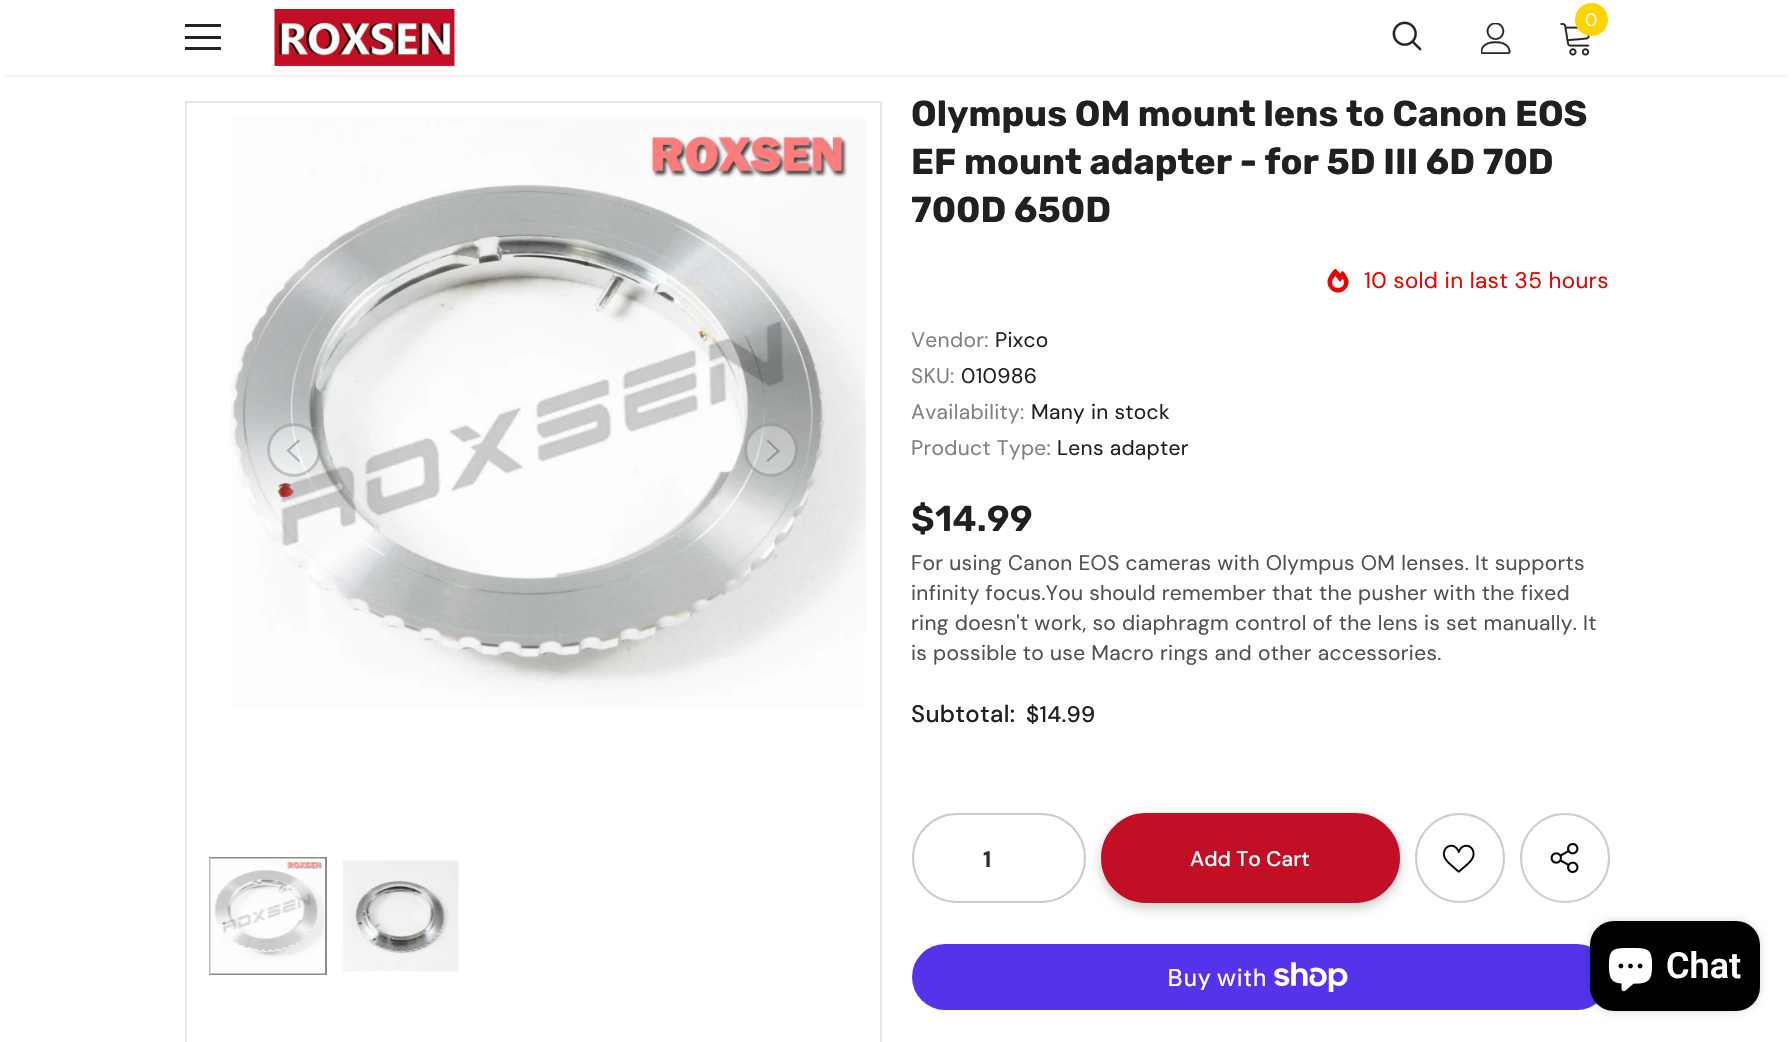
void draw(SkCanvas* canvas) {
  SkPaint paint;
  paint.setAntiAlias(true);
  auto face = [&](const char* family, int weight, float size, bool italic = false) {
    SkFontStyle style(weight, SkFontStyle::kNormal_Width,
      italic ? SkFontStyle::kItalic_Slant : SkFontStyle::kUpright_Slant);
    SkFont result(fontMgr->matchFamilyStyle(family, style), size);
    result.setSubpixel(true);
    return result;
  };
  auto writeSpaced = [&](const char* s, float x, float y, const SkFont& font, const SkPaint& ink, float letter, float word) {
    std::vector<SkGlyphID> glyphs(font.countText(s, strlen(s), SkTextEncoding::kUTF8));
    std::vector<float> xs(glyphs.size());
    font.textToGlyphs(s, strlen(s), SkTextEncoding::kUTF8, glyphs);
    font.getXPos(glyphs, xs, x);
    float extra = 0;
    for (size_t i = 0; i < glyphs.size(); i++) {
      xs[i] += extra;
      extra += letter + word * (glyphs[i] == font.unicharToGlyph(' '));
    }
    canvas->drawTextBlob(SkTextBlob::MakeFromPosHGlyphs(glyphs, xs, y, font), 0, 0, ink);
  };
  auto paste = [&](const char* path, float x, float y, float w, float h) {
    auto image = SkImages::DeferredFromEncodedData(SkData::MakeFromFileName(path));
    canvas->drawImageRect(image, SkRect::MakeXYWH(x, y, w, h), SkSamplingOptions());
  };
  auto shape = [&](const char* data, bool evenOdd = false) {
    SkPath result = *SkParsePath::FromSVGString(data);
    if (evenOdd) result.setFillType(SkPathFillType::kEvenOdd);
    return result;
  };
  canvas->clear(0xffffffff);
  paint.setColor(0x1f000000);
  paint.setMaskFilter(SkMaskFilter::MakeBlur(kNormal_SkBlurStyle, 2));
  canvas->drawRect(SkRect::MakeXYWH(5, 9, 1783, 66), paint);
  paint.setMaskFilter(nullptr);
  {
    const struct { float x, y, w, h; SkColor color; } items[] = {
      {2, 6, 1789, 69, 0xffffffff},
      {185, 24, 36, 3, 0xff232323},
      {185, 36, 36, 3, 0xff232323},
      {185, 47, 36, 3, 0xff232323},
    };
    for (auto [x, y, w, h, color] : items) {
      paint.setColor(color);
      canvas->drawRect(SkRect::MakeXYWH(x, y, w, h), paint);
    }
  }
  paste("img/1.png", 274, 9, 181, 57);
  paste("img/2.png", 1392, 21, 30, 30);
  paste("img/3.png", 1481, 23, 30, 31);
  paste("img/4.png", 1560, 23, 30, 33);
  paint.setColor(0xffffd400);
  canvas->drawCircle(1591.5f, 19.5f, 16.5f, paint);
  paint.setStroke(true);
  paint.setStrokeWidth(2);
  paint.setColor(0xffe6e6e6);
  canvas->drawRect(SkRect::MakeXYWH(186, 102, 695, 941), paint);
  paste("img/5.png", 230, 117, 636, 590);
  paint.setStroke(false);
  paint.setColor(0x4dffffff);
  canvas->drawCircle(294, 450, 27, paint);
  paint.setStroke(true);
  paint.setStrokeWidth(3);
  paint.setColor(0x4d505050);
  canvas->drawCircle(294, 450, 25.5f, paint);
  paint.setStroke(false);
  paint.setColor(0x4d212121);
  canvas->drawPath(shape("M300 441L298.5 439.5L286.5 450.5L298.5 462L300 460.5L289.5 450.5Z"), paint);
  paint.setColor(0x4dffffff);
  canvas->drawCircle(771, 450, 27, paint);
  paint.setStroke(true);
  paint.setColor(0x4d505050);
  canvas->drawCircle(771, 450, 25.5f, paint);
  paint.setStroke(false);
  paint.setColor(0x4d212121);
  canvas->drawPath(shape("M768 439.5L766.5 441L777 451L766.5 460.5L768 462L780 451Z"), paint);
  paint.setStroke(true);
  paint.setStrokeWidth(2);
  paint.setColor(0xff898989);
  canvas->drawRect(SkRect::MakeXYWH(210, 858, 116, 116), paint);
  paste("img/6.png", 209, 858, 117, 116);
  paste("img/7.png", 342, 860, 117, 112);
  paste("img/8.png", 1327, 269, 22, 24);
  paint.setColor(0xffcbcbcb);
  canvas->drawRoundRect(SkRect::MakeXYWH(913, 814, 172, 88), 44, 44, paint);
  paint.setStroke(false);
  paint.setColor(0x33000000);
  paint.setMaskFilter(SkMaskFilter::MakeBlur(kNormal_SkBlurStyle, 6));
  canvas->drawRoundRect(SkRect::MakeXYWH(1101, 818, 299, 90), 45, 45, paint);
  paint.setMaskFilter(nullptr);
  paint.setColor(0xffc20f25);
  canvas->drawRoundRect(SkRect::MakeXYWH(1102, 814, 297, 88), 44, 44, paint);
  paint.setStroke(true);
  canvas->drawRoundRect(SkRect::MakeXYWH(1102, 814, 297, 88), 44, 44, paint);
  paint.setColor(0xffcdcdcd);
  canvas->drawCircle(1460, 858, 44, paint);
  paste("img/9.png", 1443, 844, 32, 29);
  canvas->drawCircle(1565, 858, 44, paint);
  paste("img/10.png", 1550, 843, 29, 30);
  paint.setStroke(false);
  paint.setColor(0xff5433eb);
  canvas->drawRoundRect(SkRect::MakeXYWH(912, 944, 698, 66), 33, 33, paint);
  paste("img/11.png", 1274, 962, 74, 30);
  paint.setColor(0x26000000);
  paint.setMaskFilter(SkMaskFilter::MakeBlur(kNormal_SkBlurStyle, 4));
  canvas->drawRoundRect(SkRect::MakeXYWH(1590, 921, 170, 90), 24, 24, paint);
  paint.setMaskFilter(nullptr);
  paint.setColor(0xff000000);
  canvas->drawRoundRect(SkRect::MakeXYWH(1590, 921, 170, 90), 24, 24, paint);
  paste("img/12.png", 1608, 948, 45, 44);
  auto f0 = face("DM Sans", 400, 18);
  paint.setColor(0xffffffff);
  canvas->drawString("0", 1585, 26, f0, paint);
  auto f1 = face("Rubik", 700, 36);
  paint.setColor(0xff202020);
  {
    const struct { const char* s; float x, y; } items[] = {
      {"Olympus OM mount lens to Canon EOS", 911, 126},
      {"EF mount adapter - for 5D III 6D 70D", 911, 174},
      {"700D 650D", 911, 222},
    };
    for (auto [s, x, y] : items) {
      canvas->drawString(s, x, y, f1, paint);
    }
  }
  auto f2 = face("DM Sans", 400, 22.5f);
  paint.setColor(0xffe10600);
  writeSpaced("10 sold in last 35 hours", 1364, 288, f2, paint, 0.3f, 0);
  auto f3 = face("DM Sans", 400, 21);
  paint.setColor(0xff808080);
  writeSpaced("Vendor:", 911, 347, f3, paint, 0.3f, 0);
  paint.setColor(0xff202020);
  writeSpaced("Pixco", 995, 347, f3, paint, 0.3f, 0);
  paint.setColor(0xff808080);
  writeSpaced("SKU:", 911, 383, f3, paint, 0.3f, 0);
  paint.setColor(0xff202020);
  writeSpaced("010986", 961, 383, f3, paint, 0.3f, 0);
  paint.setColor(0xff808080);
  writeSpaced("Availability:", 911, 419, f3, paint, 0.3f, 0);
  paint.setColor(0xff202020);
  writeSpaced("Many in stock", 1031, 419, f3, paint, 0.3f, 0);
  paint.setColor(0xff808080);
  writeSpaced("Product Type:", 911, 455, f3, paint, 0.3f, 0);
  paint.setColor(0xff202020);
  writeSpaced("Lens adapter", 1057, 455, f3, paint, 0.3f, 0);
  auto f4 = face("Rubik", 600, 36);
  writeSpaced("$14.99", 911, 531, f4, paint, 0.3f, 0);
  paint.setColor(0xff505050);
  {
    const struct { const char* s; float x, y; } items[] = {
      {"For using Canon EOS cameras with Olympus OM lenses. It supports", 911, 570},
      {"infinity focus.You should remember that the pusher with the fixed", 911, 600},
      {"ring doesn't work, so diaphragm control of the lens is set manually. It", 911, 630},
      {"is possible to use Macro rings and other accessories.", 911, 660},
    };
    for (auto [s, x, y] : items) {
      writeSpaced(s, x, y, f3, paint, 0.3f, 0);
    }
  }
  auto f5 = face("DM Sans", 500, 24);
  paint.setColor(0xff202020);
  writeSpaced("Subtotal:", 911, 722, f5, paint, 0.3f, 0);
  auto f6 = face("DM Sans", 500, 22.5f);
  writeSpaced("$14.99", 1026, 722, f6, paint, 0.3f, 0);
  auto f7 = face("DM Sans", 700, 22.5f);
  paint.setColor(0xff2d2d2d);
  canvas->drawString("1", 983, 867, f7, paint);
  auto f8 = face("DM Sans", 500, 21);
  paint.setColor(0xffffffff);
  canvas->drawString("Add To Cart", 1190, 866, f8, paint);
  auto f9 = face("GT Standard", 400, 24);
  writeSpaced("Buy with", 1167, 986, f9, paint, 0.3f, 0);
  auto f10 = face("Roboto", 600, 36);
  canvas->drawString("Chat", 1666, 978, f10, paint);
}
